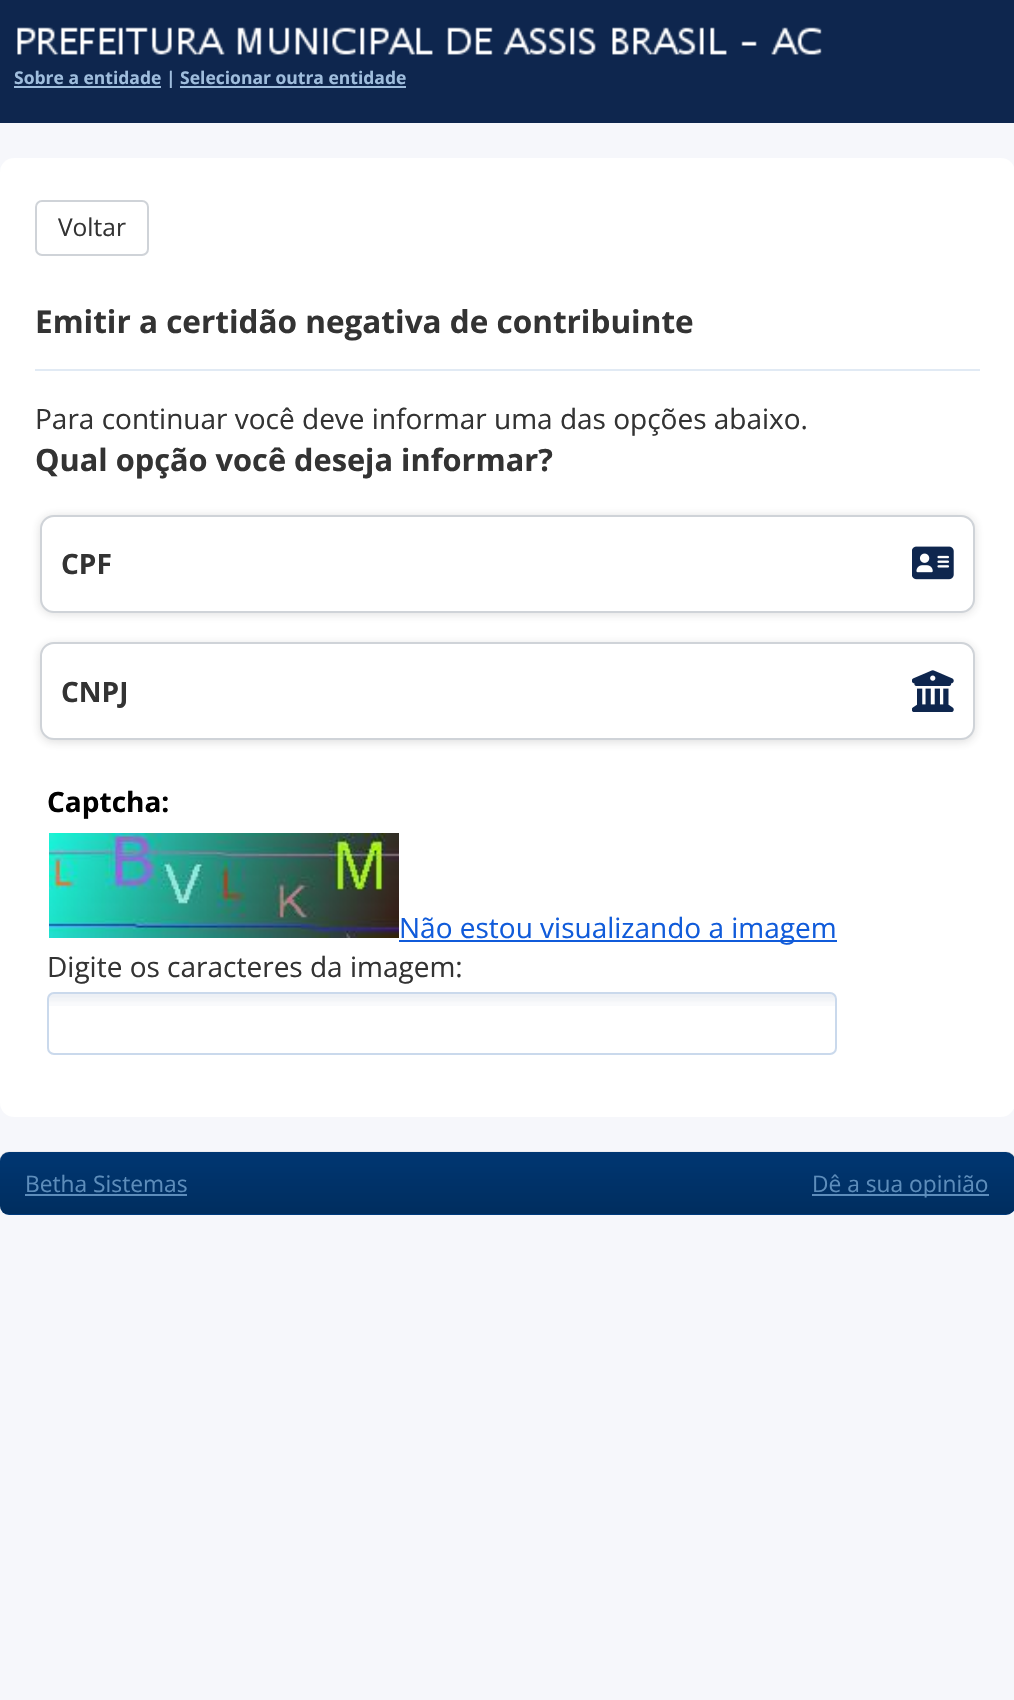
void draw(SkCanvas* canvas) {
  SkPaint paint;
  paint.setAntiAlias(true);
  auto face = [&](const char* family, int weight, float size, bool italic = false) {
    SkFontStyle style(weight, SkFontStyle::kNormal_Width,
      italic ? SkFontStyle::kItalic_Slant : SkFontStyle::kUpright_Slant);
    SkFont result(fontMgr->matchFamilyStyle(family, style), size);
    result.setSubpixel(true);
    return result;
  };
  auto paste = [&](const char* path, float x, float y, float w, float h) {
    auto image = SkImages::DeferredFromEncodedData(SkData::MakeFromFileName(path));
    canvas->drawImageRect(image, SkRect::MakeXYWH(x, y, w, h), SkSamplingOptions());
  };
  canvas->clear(0xfff6f7fb);
  paint.setColor(0xff0e264e);
  canvas->drawRect(SkRect::MakeXYWH(0, 0, 1014, 123), paint);
  paste("img/1.png", 17, 27, 805, 28);
  paint.setColor(0xff9fbddd);
  canvas->drawRect(SkRect::MakeXYWH(14, 86, 147, 2), paint);
  canvas->drawRect(SkRect::MakeXYWH(180, 86, 226, 2), paint);
  paint.setColor(0xffffffff);
  canvas->drawRoundRect(SkRect::MakeXYWH(0, 158, 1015, 959), 14, 14, paint);
  paint.setStroke(true);
  paint.setStrokeWidth(2);
  paint.setColor(0xffcfd3d8);
  canvas->drawRoundRect(SkRect::MakeXYWH(36, 201, 112, 54), 6, 6, paint);
  paint.setStroke(false);
  paint.setColor(0xffe1eaf4);
  canvas->drawRect(SkRect::MakeXYWH(35, 369, 945, 2), paint);
  paint.setColor(0x29333333);
  paint.setMaskFilter(SkMaskFilter::MakeBlur(kNormal_SkBlurStyle, 5));
  canvas->drawRoundRect(SkRect::MakeXYWH(40, 516, 935, 98), 14, 14, paint);
  paint.setMaskFilter(nullptr);
  paint.setColor(0xffffffff);
  canvas->drawRoundRect(SkRect::MakeXYWH(41, 516, 933, 96), 13, 13, paint);
  paint.setStroke(true);
  paint.setColor(0xffcfd3d8);
  canvas->drawRoundRect(SkRect::MakeXYWH(41, 516, 933, 96), 13, 13, paint);
  paste("img/2.png", 912, 546, 42, 34);
  paint.setStroke(false);
  paint.setColor(0x29333333);
  paint.setMaskFilter(SkMaskFilter::MakeBlur(kNormal_SkBlurStyle, 5));
  canvas->drawRoundRect(SkRect::MakeXYWH(40, 644, 935, 98), 14, 14, paint);
  paint.setMaskFilter(nullptr);
  paint.setColor(0xffffffff);
  canvas->drawRoundRect(SkRect::MakeXYWH(41, 643, 933, 96), 13, 13, paint);
  paint.setStroke(true);
  paint.setColor(0xffcfd3d8);
  canvas->drawRoundRect(SkRect::MakeXYWH(41, 643, 933, 96), 13, 13, paint);
  paste("img/3.png", 912, 670, 42, 42);
  paste("img/4.png", 49, 833, 350, 105);
  paint.setStroke(false);
  paint.setColor(0xff105bda);
  canvas->drawRect(SkRect::MakeXYWH(399, 940, 438, 2), paint);
  paste("img/5.png", 47, 992, 789, 14);
  paint.setStroke(true);
  paint.setColor(0xffcad9ec);
  canvas->drawRoundRect(SkRect::MakeXYWH(48, 993, 788, 61), 6, 6, paint);
  paint.setStroke(false);
  paint.setColor(0xff004086);
  canvas->drawRoundRect(SkRect::MakeXYWH(0, 1152, 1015, 63), 9, 9, paint);
  paste("img/6.png", 0, 1151, 1014, 64);
  paint.setColor(0xff5d8dbb);
  canvas->drawRect(SkRect::MakeXYWH(25, 1194, 162, 2), paint);
  canvas->drawRect(SkRect::MakeXYWH(812, 1194, 177, 2), paint);
  auto f0 = face("Open Sans", 700, 17.5f);
  paint.setColor(0xff9fbddd);
  canvas->drawString("Sobre a entidade | Selecionar outra entidade", 14, 84, f0, paint);
  auto f1 = face("Open Sans", 400, 24.5f);
  paint.setColor(0xff333333);
  canvas->drawString("Voltar", 58, 236, f1, paint);
  auto f2 = face("Open Sans", 700, 31.5f);
  canvas->drawString("Emitir a certidão negativa de contribuinte", 35, 333, f2, paint);
  auto f3 = face("Open Sans", 400, 28);
  canvas->drawString("Para continuar você deve informar uma das opções abaixo.", 35, 429, f3, paint);
  auto f4 = face("Open Sans", 700, 30.75f);
  canvas->drawString("Qual opção você deseja informar?", 35, 471, f4, paint);
  auto f5 = face("Open Sans", 700, 28);
  canvas->drawString("CPF", 61, 574, f5, paint);
  canvas->drawString("CNPJ", 61, 702, f5, paint);
  paint.setColor(0xff000000);
  canvas->drawString("Captcha:", 47, 812, f5, paint);
  paint.setColor(0xff105bda);
  canvas->drawString("Não estou visualizando a imagem", 399, 938, f3, paint);
  paint.setColor(0xff333333);
  canvas->drawString("Digite os caracteres da imagem:", 47, 977, f3, paint);
  auto f6 = face("Open Sans", 400, 22.75f);
  paint.setColor(0xff5d8dbb);
  canvas->drawString("Betha Sistemas", 25, 1192, f6, paint);
  canvas->drawString("Dê a sua opinião", 812, 1192, f6, paint);
}
